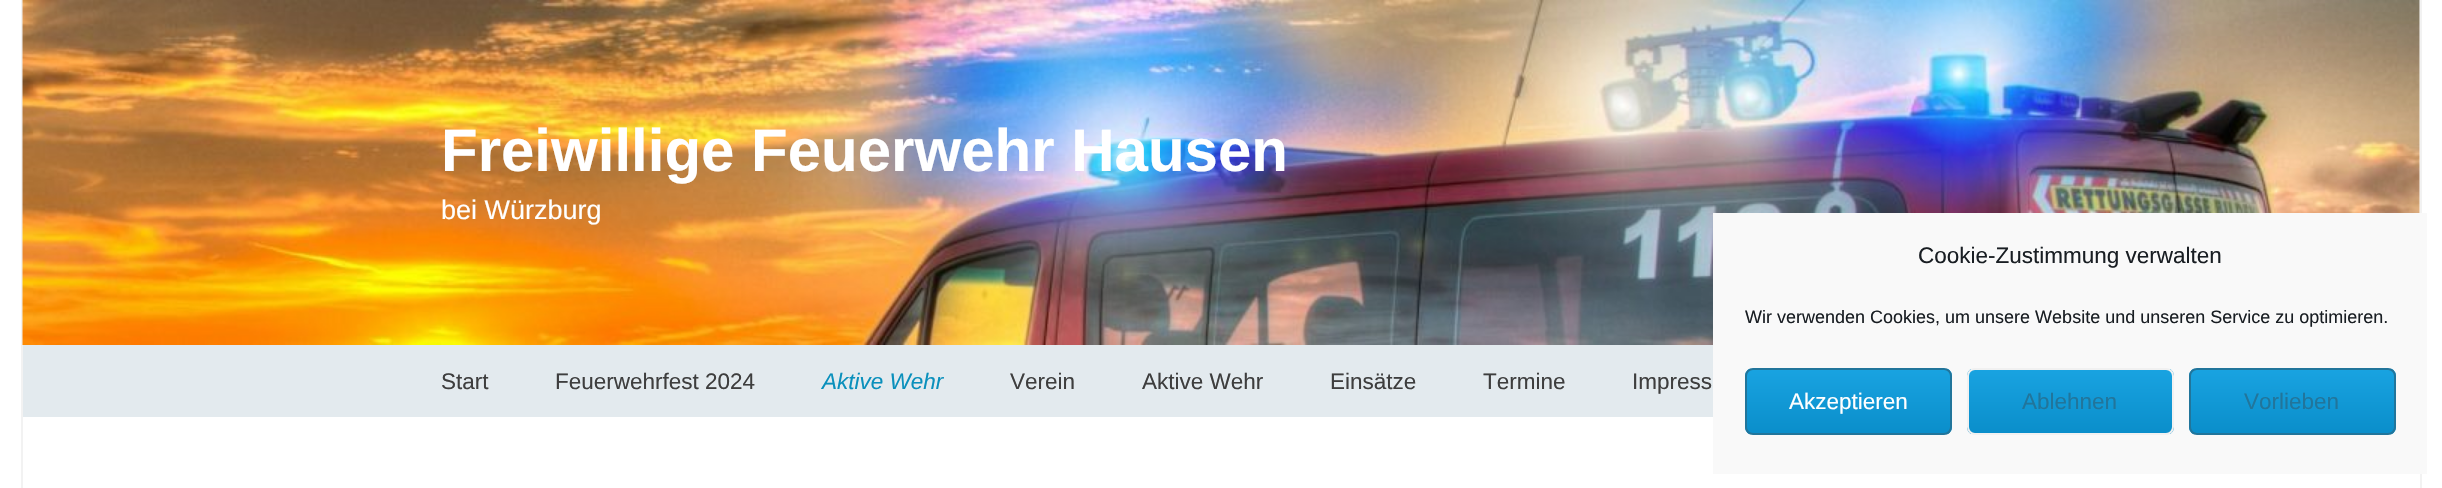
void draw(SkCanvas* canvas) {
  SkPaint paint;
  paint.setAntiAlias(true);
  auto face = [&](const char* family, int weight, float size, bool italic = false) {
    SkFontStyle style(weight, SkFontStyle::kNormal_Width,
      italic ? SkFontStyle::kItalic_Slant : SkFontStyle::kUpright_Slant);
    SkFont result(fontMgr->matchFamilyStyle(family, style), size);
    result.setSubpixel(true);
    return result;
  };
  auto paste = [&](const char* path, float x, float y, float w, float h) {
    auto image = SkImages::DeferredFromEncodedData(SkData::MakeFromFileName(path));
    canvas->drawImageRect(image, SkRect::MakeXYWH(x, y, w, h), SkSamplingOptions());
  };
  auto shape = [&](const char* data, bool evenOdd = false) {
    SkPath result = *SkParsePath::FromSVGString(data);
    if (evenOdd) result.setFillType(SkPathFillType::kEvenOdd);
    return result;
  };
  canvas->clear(0xffffffff);
  paint.setColor(0xfff2f2f2);
  canvas->drawRect(SkRect::MakeXYWH(2420, 0, 2, 488), paint);
  canvas->drawRect(SkRect::MakeXYWH(21, 0, 2, 488), paint);
  paste("img/1.png", 22, 0, 2398, 345);
  paint.setColor(0xffe3eaee);
  canvas->drawRect(SkRect::MakeXYWH(23, 345, 1690, 72), paint);
  paint.setColor(0xfff9f9f9);
  canvas->drawRect(SkRect::MakeXYWH(1713, 213, 714, 261), paint);
  canvas->save();
  canvas->clipPath(shape("M1753 368H1944C1948.5 368 1952 371.5 1952 376V427C1952 431.5 1948.5 435 1944 435H1753C1748.5 435 1745 431.5 1745 427V376C1745 371.5 1748.5 368 1753 368Z"), true);
  {
    const SkColor colors[] = {0xff19a3e1, 0xff0a8eca};
    const float stops[] = {0, 1};
    const SkPoint ends[] = {{1848, 369}, {1848, 434}};
    paint.setShader(SkGradientShader::MakeLinear(ends, colors, stops, 2, SkTileMode::kClamp));
    paint.setAlpha(255);
  }
  canvas->drawRect(SkRect::MakeXYWH(1745, 369, 207, 65), paint);
  canvas->restore();
  paint.setStroke(true);
  paint.setStrokeWidth(2);
  paint.setShader(nullptr);
  paint.setColor(0xff21759b);
  canvas->drawRoundRect(SkRect::MakeXYWH(1746, 369, 205, 65), 7, 7, paint);
  canvas->save();
  canvas->clipPath(shape("M1975 368H2166C2170.5 368 2174 371.5 2174 376V427C2174 431.5 2170.5 435 2166 435H1975C1970.5 435 1967 431.5 1967 427V376C1967 371.5 1970.5 368 1975 368Z"), true);
  paint.setStroke(false);
  {
    const SkColor colors[] = {0xff19a3e1, 0xff0a8eca};
    const float stops[] = {0, 1};
    const SkPoint ends[] = {{2070, 369}, {2070, 434}};
    paint.setShader(SkGradientShader::MakeLinear(ends, colors, stops, 2, SkTileMode::kClamp));
    paint.setAlpha(255);
  }
  canvas->drawRect(SkRect::MakeXYWH(1967, 369, 207, 65), paint);
  canvas->restore();
  paint.setStroke(true);
  paint.setShader(nullptr);
  paint.setColor(0xfff1f1f1);
  canvas->drawRoundRect(SkRect::MakeXYWH(1968, 369, 205, 65), 7, 7, paint);
  canvas->save();
  canvas->clipPath(shape("M2197 368H2388C2392.5 368 2396 371.5 2396 376V427C2396 431.5 2392.5 435 2388 435H2197C2192.5 435 2189 431.5 2189 427V376C2189 371.5 2192.5 368 2197 368Z"), true);
  paint.setStroke(false);
  {
    const SkColor colors[] = {0xff19a3e1, 0xff0a8eca};
    const float stops[] = {0, 1};
    const SkPoint ends[] = {{2292, 369}, {2292, 434}};
    paint.setShader(SkGradientShader::MakeLinear(ends, colors, stops, 2, SkTileMode::kClamp));
    paint.setAlpha(255);
  }
  canvas->drawRect(SkRect::MakeXYWH(2189, 369, 207, 65), paint);
  canvas->restore();
  paint.setStroke(true);
  paint.setShader(nullptr);
  paint.setColor(0xff21759b);
  canvas->drawRoundRect(SkRect::MakeXYWH(2190, 369, 205, 65), 7, 7, paint);
  auto f0 = face("Liberation Sans", 700, 60);
  paint.setStroke(false);
  paint.setColor(0xffffffff);
  canvas->drawString("Freiwillige Feuerwehr Hausen", 441, 171, f0, paint);
  auto f1 = face("Liberation Sans", 400, 27);
  canvas->drawString("bei Würzburg", 441, 219, f1, paint);
  auto f2 = face("Liberation Sans", 400, 22.5f);
  paint.setColor(0xff3e3e3e);
  canvas->drawString("Start", 441, 389, f2, paint);
  canvas->drawString("Feuerwehrfest 2024", 555, 389, f2, paint);
  auto f3 = face("Liberation Sans", 400, 22.5f, true);
  paint.setColor(0xff0a90bc);
  canvas->drawString("Aktive Wehr", 822, 389, f3, paint);
  paint.setColor(0xff3e3e3e);
  {
    const struct { const char* s; float x, y; } items[] = {
      {"Verein", 1010, 389},
      {"Aktive Wehr", 1142, 389},
      {"Einsätze", 1330, 389},
      {"Termine", 1483, 389},
      {"Impress", 1632, 389},
    };
    for (auto [s, x, y] : items) {
      canvas->drawString(s, x, y, f2, paint);
    }
  }
  paint.setColor(0xff191e23);
  canvas->drawString("Cookie-Zustimmung verwalten", 1918, 263, f2, paint);
  auto f4 = face("Liberation Sans", 400, 18);
  canvas->drawString("Wir verwenden Cookies, um unsere Website und unseren Service zu optimieren.", 1745, 323, f4, paint);
  paint.setColor(0xffffffff);
  canvas->drawString("Akzeptieren", 1789, 409, f2, paint);
  paint.setColor(0xff21759b);
  canvas->drawString("Ablehnen", 2022, 409, f2, paint);
  canvas->drawString("Vorlieben", 2244, 409, f2, paint);
}
